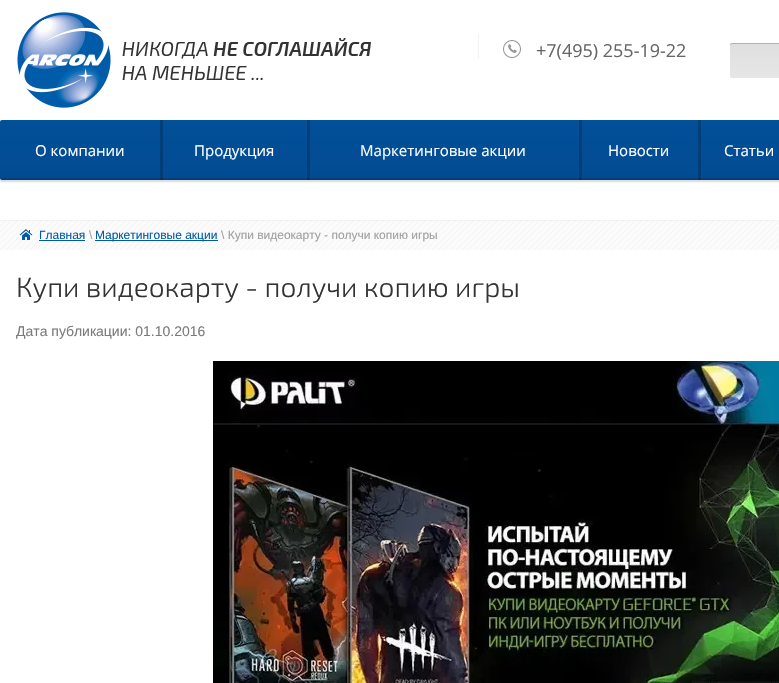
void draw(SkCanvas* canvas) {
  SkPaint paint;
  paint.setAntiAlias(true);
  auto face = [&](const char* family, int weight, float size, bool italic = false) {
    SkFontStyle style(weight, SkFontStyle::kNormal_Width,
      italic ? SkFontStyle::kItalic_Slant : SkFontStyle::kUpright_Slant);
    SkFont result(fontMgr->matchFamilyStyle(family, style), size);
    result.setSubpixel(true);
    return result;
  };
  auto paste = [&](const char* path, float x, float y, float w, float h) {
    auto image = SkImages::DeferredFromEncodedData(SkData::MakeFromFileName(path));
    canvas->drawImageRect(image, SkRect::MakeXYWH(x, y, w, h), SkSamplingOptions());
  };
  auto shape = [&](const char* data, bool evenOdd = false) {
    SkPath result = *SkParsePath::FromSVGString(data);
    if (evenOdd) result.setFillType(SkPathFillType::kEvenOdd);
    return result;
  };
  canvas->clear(0xffffffff);
  paste("img/1.png", 17, 12, 94, 96);
  paste("img/2.png", 122, 38, 249, 42);
  paste("img/3.png", 503, 40, 18, 18);
  paint.setColor(0xfff2f2f2);
  canvas->drawRect(SkRect::MakeXYWH(478, 34, 1, 25), paint);
  {
    const SkColor colors[] = {0xffdfdfdf, 0xffe6e6e6};
    const float stops[] = {0, 1};
    const SkPoint ends[] = {{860, 43}, {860, 78}};
    paint.setShader(SkGradientShader::MakeLinear(ends, colors, stops, 2, SkTileMode::kClamp));
    paint.setAlpha(255);
  }
  canvas->drawRoundRect(SkRect::MakeXYWH(730, 43, 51, 35), 2, 2, paint);
  paint.setShader(nullptr);
  paint.setColor(0xffb2b2b2);
  canvas->drawPath(shape("M732 44H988C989 44 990 45 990 46V45C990 44 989 43 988 43H732C731 43 730 44 730 45V46C730 45 731 44 732 44Z"), paint);
  paint.setColor(0x26000000);
  paint.setMaskFilter(SkMaskFilter::MakeBlur(kNormal_SkBlurStyle, 1));
  canvas->drawRoundRect(SkRect::MakeXYWH(0, 122, 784, 60), 2, 2, paint);
  paint.setMaskFilter(nullptr);
  {
    const SkColor colors[] = {0xff025098, 0xff024b92};
    const float stops[] = {0, 1};
    const SkPoint ends[] = {{495, 120}, {495, 180}};
    paint.setShader(SkGradientShader::MakeLinear(ends, colors, stops, 2, SkTileMode::kClamp));
    paint.setAlpha(255);
  }
  canvas->drawRoundRect(SkRect::MakeXYWH(0, 120, 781, 60), 2, 2, paint);
  paint.setShader(nullptr);
  paint.setColor(0x26000000);
  canvas->drawPath(shape("M0 176V179L2 180H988C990 180 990 178 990 176C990 177 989 178 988 178H2C1 178 0 177 0 176Z"), paint);
  {
    const struct { float x, y, w, h; SkColor color; } items[] = {
      {160, 120, 3, 60, 0x33000000},
      {307, 120, 3, 60, 0x33000000},
      {579, 120, 3, 60, 0x33000000},
      {698, 120, 3, 60, 0x33000000},
    };
    for (auto [x, y, w, h, color] : items) {
      paint.setColor(color);
      canvas->drawRect(SkRect::MakeXYWH(x, y, w, h), paint);
    }
  }
  paste("img/4.png", 0, 220, 779, 30);
  paste("img/5.png", 19, 229, 14, 11);
  paint.setColor(0xff005ba9);
  canvas->drawRect(SkRect::MakeXYWH(39, 240, 46, 1), paint);
  canvas->drawRect(SkRect::MakeXYWH(95, 240, 123, 1), paint);
  paste("img/6.png", 213, 361, 566, 322);
  auto f0 = face("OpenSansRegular", 400, 18);
  paint.setColor(0xff666666);
  canvas->drawString("+7(495) 255-19-22", 536, 57, f0, paint);
  auto f1 = face("OpenSansRegular", 400, 15);
  paint.setColor(0xffffffff);
  {
    const struct { const char* s; float x, y; } items[] = {
      {"О компании", 35, 156},
      {"Продукция", 194, 156},
      {"Маркетинговые акции", 360, 156},
      {"Новости", 608, 156},
      {"Статьи", 724, 156},
    };
    for (auto [s, x, y] : items) {
      canvas->drawString(s, x, y, f1, paint);
    }
  }
  auto f2 = face("Liberation Sans", 400, 12);
  paint.setColor(0xff005ba9);
  canvas->drawString("Главная", 39, 239, f2, paint);
  paint.setColor(0xffa0a0a0);
  canvas->drawString("\\", 89, 239, f2, paint);
  paint.setColor(0xff005ba9);
  canvas->drawString("Маркетинговые акции", 95, 239, f2, paint);
  paint.setColor(0xffa0a0a0);
  canvas->drawString("\\ Купи видеокарту - получи копию игры", 221, 239, f2, paint);
  auto f3 = face("Exo 2", 300, 28);
  paint.setColor(0xff333333);
  canvas->drawString("Купи видеокарту - получи копию игры", 16, 297, f3, paint);
  auto f4 = face("Liberation Sans", 400, 14);
  paint.setColor(0xff7b7b7b);
  canvas->drawString("Дата публикации: 01.10.2016", 16, 336, f4, paint);
}
